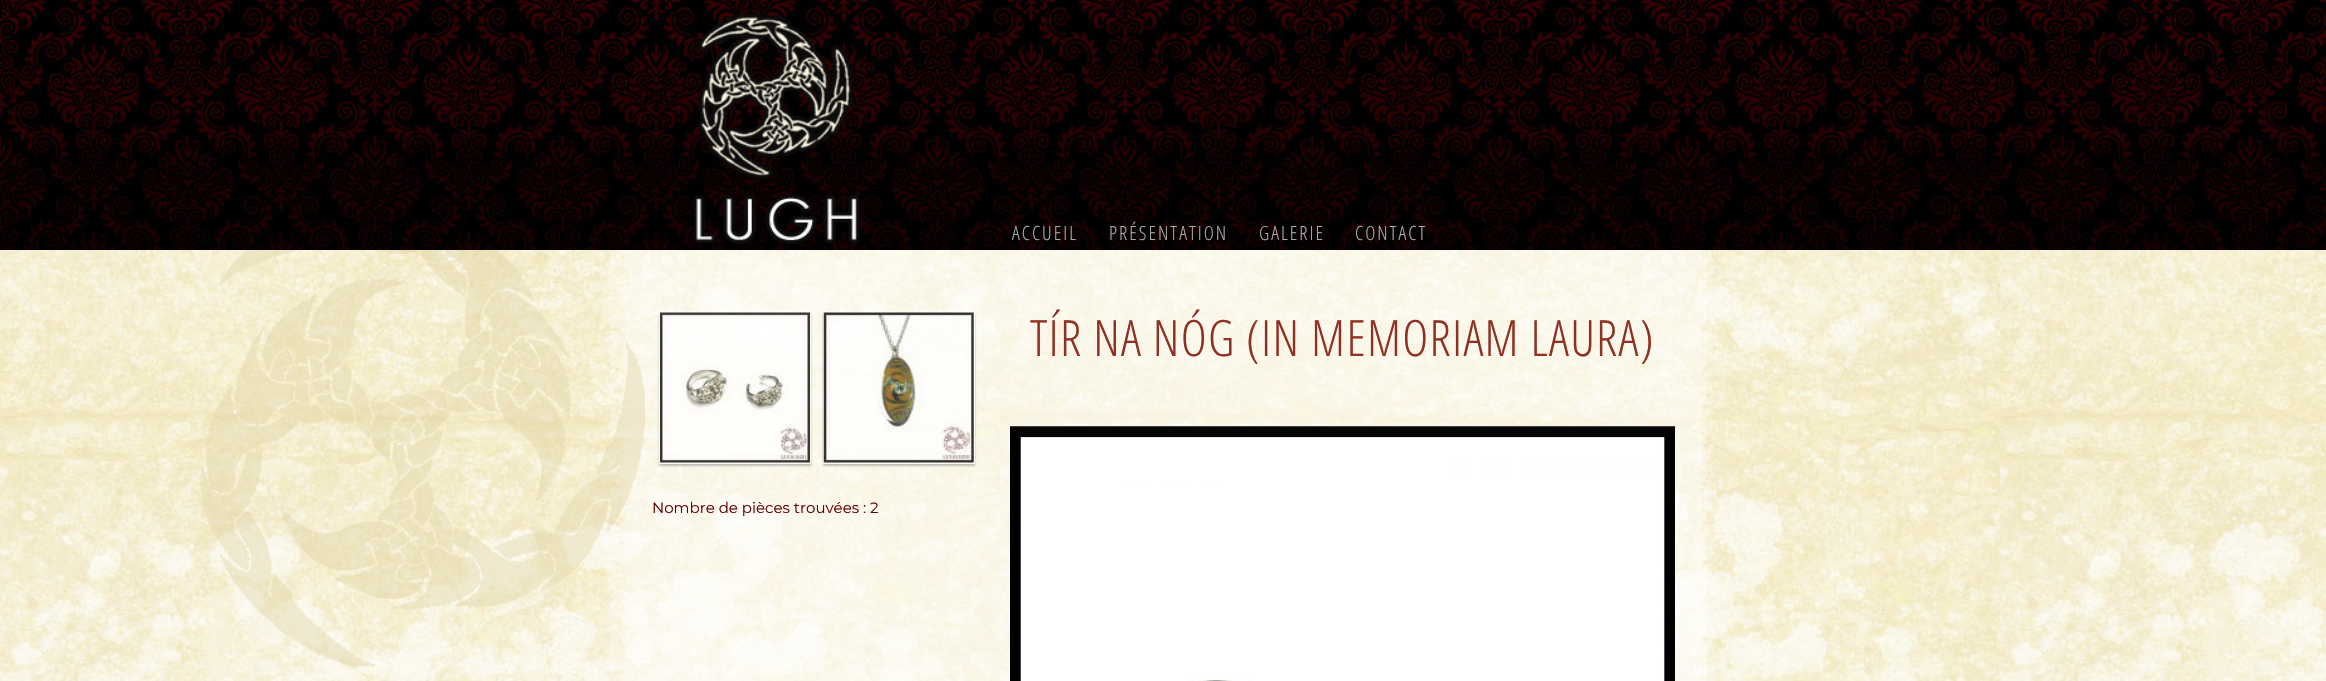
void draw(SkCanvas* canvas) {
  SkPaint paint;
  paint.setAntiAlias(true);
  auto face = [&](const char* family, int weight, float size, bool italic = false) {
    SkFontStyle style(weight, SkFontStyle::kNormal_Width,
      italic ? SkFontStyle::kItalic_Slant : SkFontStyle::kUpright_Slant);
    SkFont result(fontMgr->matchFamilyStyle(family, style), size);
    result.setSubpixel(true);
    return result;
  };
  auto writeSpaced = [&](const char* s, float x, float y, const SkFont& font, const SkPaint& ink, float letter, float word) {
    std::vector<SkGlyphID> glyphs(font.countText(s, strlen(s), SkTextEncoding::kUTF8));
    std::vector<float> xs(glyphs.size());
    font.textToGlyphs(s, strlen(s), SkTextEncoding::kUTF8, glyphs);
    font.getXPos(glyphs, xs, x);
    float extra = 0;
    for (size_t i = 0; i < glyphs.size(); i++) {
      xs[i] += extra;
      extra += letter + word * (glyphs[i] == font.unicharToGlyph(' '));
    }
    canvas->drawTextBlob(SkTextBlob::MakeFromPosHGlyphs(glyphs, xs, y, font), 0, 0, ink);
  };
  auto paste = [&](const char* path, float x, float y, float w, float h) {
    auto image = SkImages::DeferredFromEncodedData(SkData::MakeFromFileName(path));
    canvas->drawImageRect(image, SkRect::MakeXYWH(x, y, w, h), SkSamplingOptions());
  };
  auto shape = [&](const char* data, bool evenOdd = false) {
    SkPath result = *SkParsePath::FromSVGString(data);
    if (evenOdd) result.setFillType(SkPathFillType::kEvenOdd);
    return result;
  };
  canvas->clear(0xffffffff);
  paste("img/1.png", 0, 0, 2326, 250);
  paste("img/2.png", 694, 12, 166, 232);
  paste("img/3.png", 0, 250, 2326, 431);
  paste("img/4.png", 601, 250, 1125, 431);
  paste("img/5.png", 200, 250, 445, 417);
  paste("img/6.png", 1010, 426, 665, 255);
  canvas->save();
  canvas->clipPath(shape("M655 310H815V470H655ZM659 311H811V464H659Z", true), true);
  paint.setColor(0x87888888);
  paint.setMaskFilter(SkMaskFilter::MakeBlur(kNormal_SkBlurStyle, 1));
  canvas->drawRect(SkRect::MakeXYWH(659, 314, 152, 152), paint);
  paint.setMaskFilter(nullptr);
  canvas->restore();
  paint.setStroke(true);
  paint.setStrokeWidth(1);
  paint.setColor(0x8cffffff);
  canvas->drawRect(SkRect::MakeXYWH(659.5f, 311.5f, 151, 152), paint);
  paste("img/7.png", 660, 312, 150, 151);
  canvas->save();
  canvas->clipPath(shape("M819 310H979V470H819ZM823 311H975V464H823Z", true), true);
  paint.setStroke(false);
  paint.setColor(0x87888888);
  paint.setMaskFilter(SkMaskFilter::MakeBlur(kNormal_SkBlurStyle, 1));
  canvas->drawRect(SkRect::MakeXYWH(823, 314, 152, 152), paint);
  paint.setMaskFilter(nullptr);
  canvas->restore();
  paint.setStroke(true);
  paint.setColor(0x8cffffff);
  canvas->drawRect(SkRect::MakeXYWH(823.5f, 311.5f, 151, 152), paint);
  paste("img/8.png", 823, 312, 151, 151);
  auto f0 = face("Open Sans", 300, 19.5f);
  paint.setStroke(false);
  paint.setColor(0xffadadad);
  {
    const struct { const char* s; float x, y; } items[] = {
      {"ACCUEIL", 1012, 240},
      {"PRÉSENTATION", 1109, 240},
      {"GALERIE", 1259, 240},
      {"CONTACT", 1355, 240},
    };
    for (auto [s, x, y] : items) {
      writeSpaced(s, x, y, f0, paint, 2, 0);
    }
  }
  auto f1 = face("Open Sans", 300, 50);
  paint.setColor(0xff903023);
  writeSpaced("TÍR NA NÓG (IN MEMORIAM LAURA)", 1030, 356, f1, paint, 1.25f, 0);
  auto f2 = face("Montserrat", 400, 15);
  paint.setColor(0xff660000);
  canvas->drawString("Nombre de pièces trouvées : 2", 652, 513, f2, paint);
}
